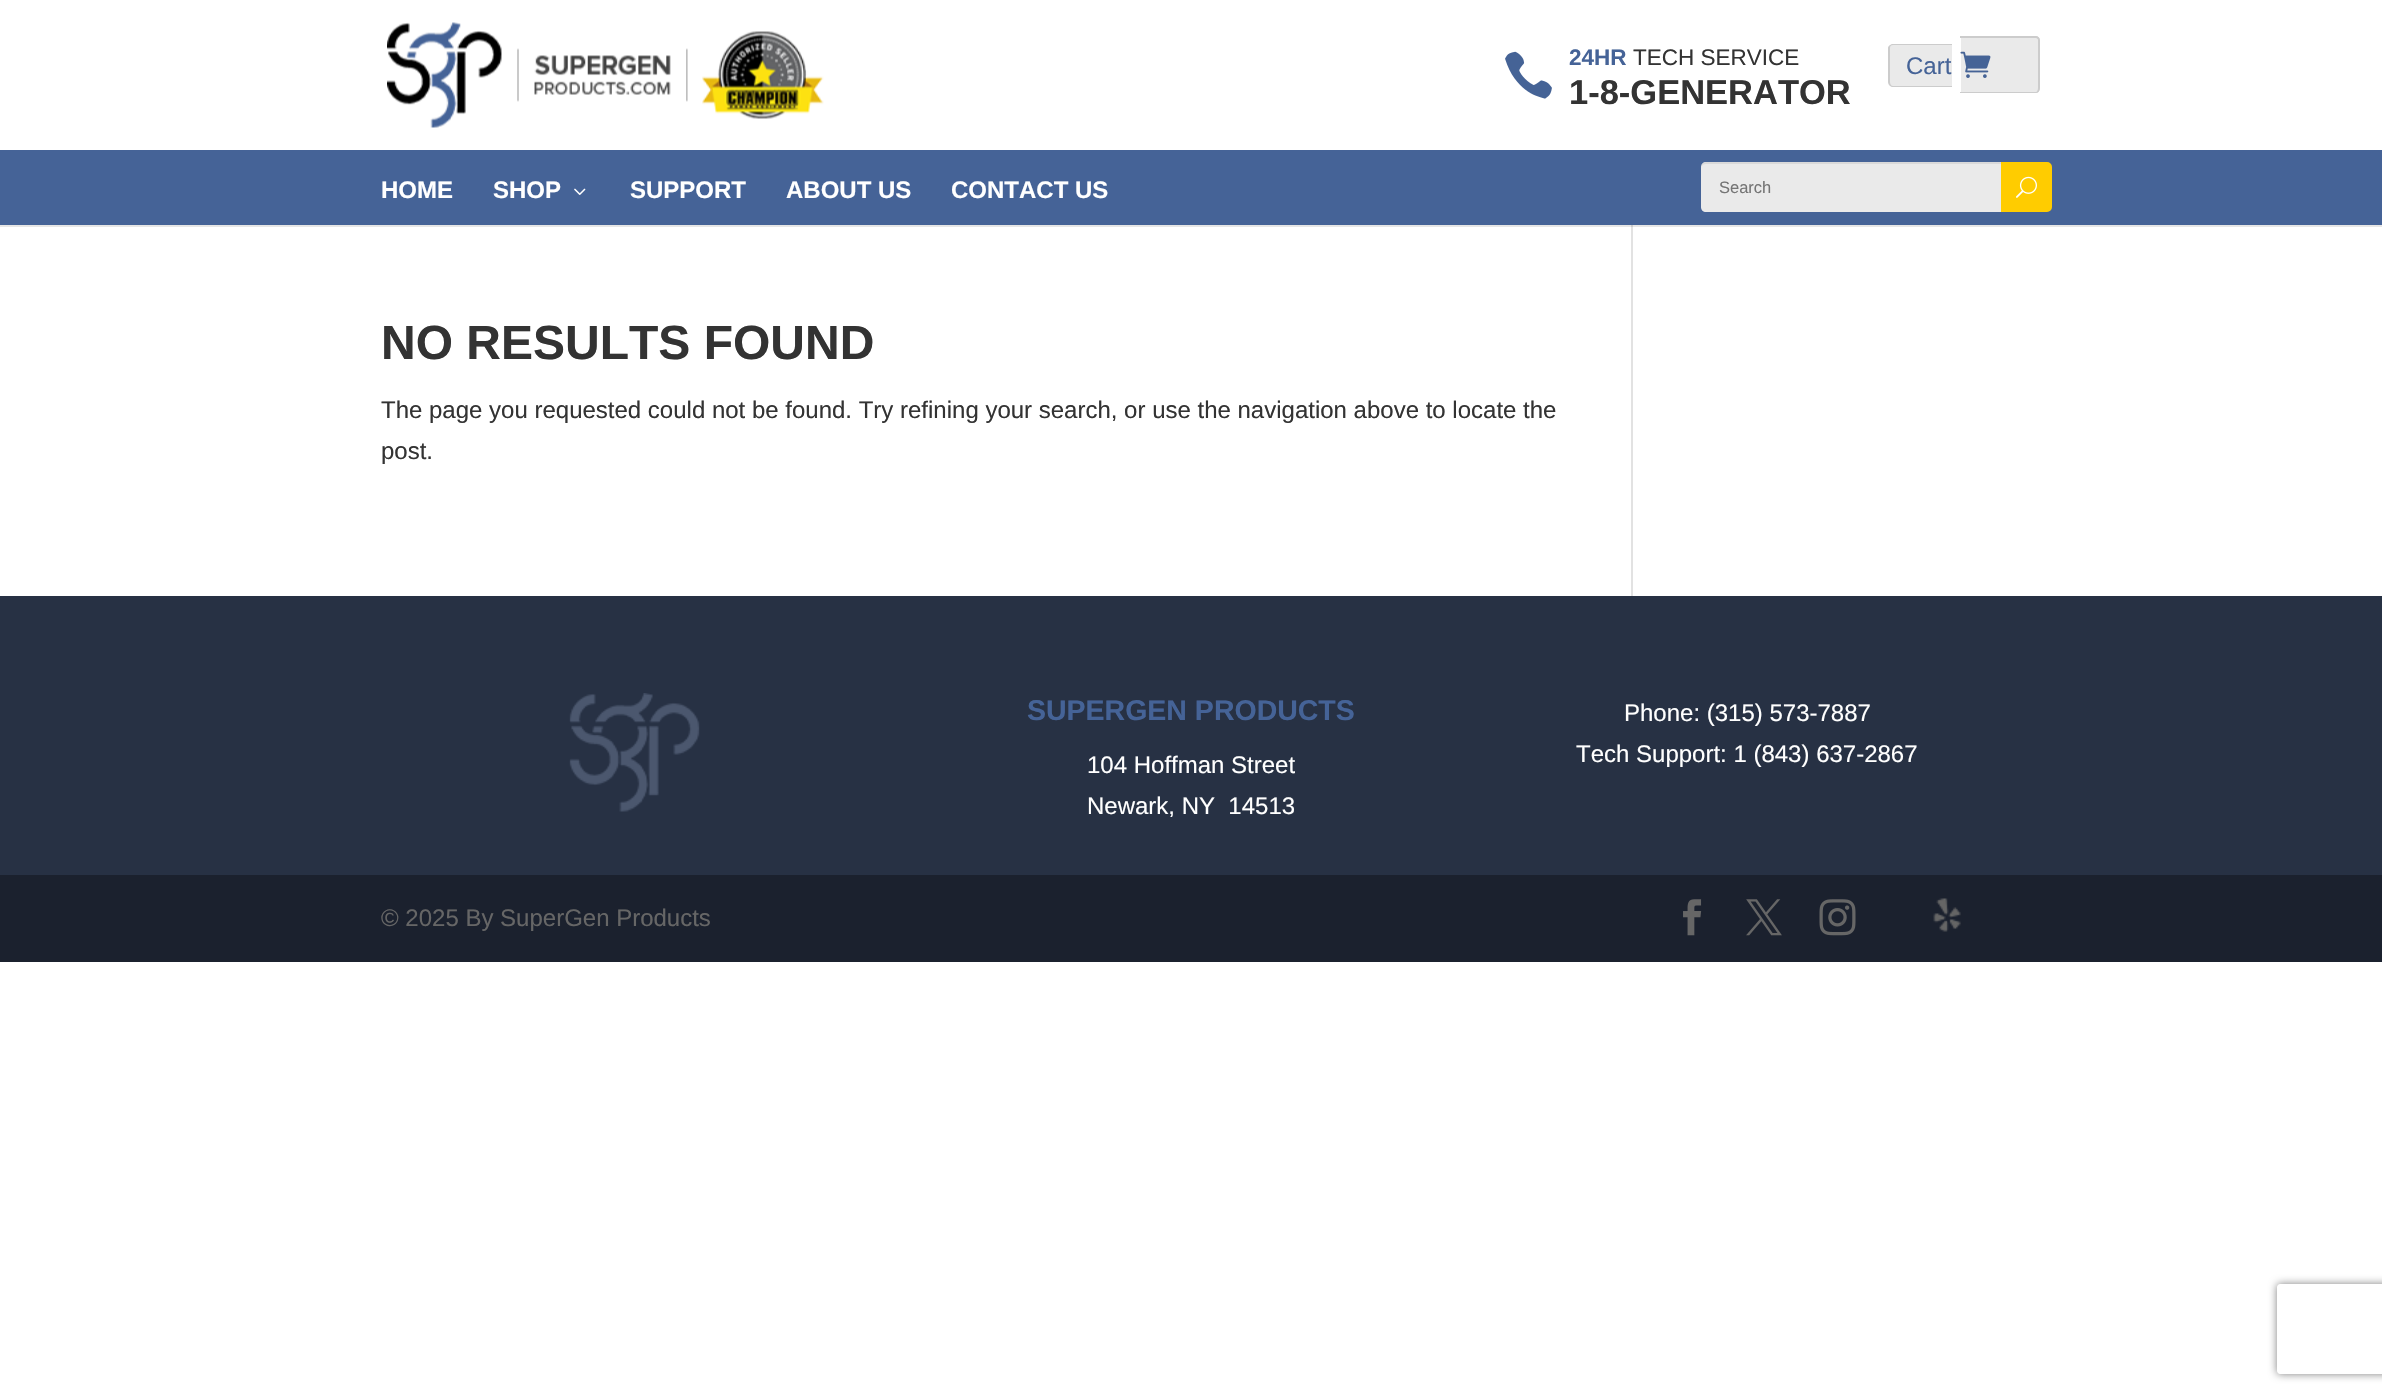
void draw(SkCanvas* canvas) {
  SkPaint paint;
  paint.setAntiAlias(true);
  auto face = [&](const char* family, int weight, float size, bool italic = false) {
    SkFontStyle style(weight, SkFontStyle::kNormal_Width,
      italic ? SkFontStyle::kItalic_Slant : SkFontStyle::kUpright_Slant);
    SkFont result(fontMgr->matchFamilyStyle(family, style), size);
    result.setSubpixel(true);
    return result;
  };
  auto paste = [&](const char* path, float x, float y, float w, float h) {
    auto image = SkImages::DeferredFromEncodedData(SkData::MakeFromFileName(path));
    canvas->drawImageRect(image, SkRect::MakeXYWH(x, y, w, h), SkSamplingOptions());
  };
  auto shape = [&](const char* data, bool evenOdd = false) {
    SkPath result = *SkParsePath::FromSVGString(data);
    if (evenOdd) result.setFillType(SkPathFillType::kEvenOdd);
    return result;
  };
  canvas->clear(0xffffffff);
  paint.setColor(0xffe6e6e6);
  canvas->drawRect(SkRect::MakeXYWH(0, 225, 2382, 2), paint);
  paste("img/1.png", 387, 22, 437, 106);
  paste("img/2.png", 1505, 51, 47, 48);
  paint.setColor(0xffeaeaea);
  canvas->drawPath(shape("M1894 44H1952V87H1894C1891 87 1889 85 1889 82V49C1889 46 1891 44 1894 44Z"), paint);
  paint.setColor(0xffcccccc);
  canvas->drawPath(shape("M1893 44H1952V87H1893C1891 87 1888 85 1888 82V48C1888 46 1891 44 1893 44ZM1893 45H1952V86H1893C1891 86 1890 84 1890 82V48C1890 46 1891 45 1893 45Z", true), paint);
  paint.setColor(0xffeaeaea);
  canvas->drawPath(shape("M1961 36H2035C2038 36 2040 38 2040 41V88C2040 91 2038 93 2035 93H1961Z"), paint);
  paint.setColor(0xffcccccc);
  canvas->drawPath(shape("M1960 36H2036C2038 36 2040 38 2040 40V88C2040 91 2038 93 2036 93H1960ZM1960 38H2036C2037 38 2038 39 2038 40V88C2038 90 2037 92 2036 92H1960Z", true), paint);
  paste("img/3.png", 1960, 51, 31, 27);
  paint.setColor(0xff456397);
  canvas->drawRect(SkRect::MakeXYWH(0, 150, 2382, 75), paint);
  paste("img/4.png", 574, 188, 12, 7);
  paint.setColor(0xffeaeaea);
  canvas->drawPath(shape("M1706 162H2001V212H1706C1703 212 1701 210 1701 207V167C1701 164 1703 162 1706 162Z"), paint);
  paint.setColor(0x12000000);
  canvas->drawPath(shape("M1706 164H2001V162H1706C1703 162 1701 165 1701 168C1701 166 1703 164 1706 164Z"), paint);
  paint.setColor(0xffffcc00);
  canvas->drawPath(shape("M2002.5 163.5H2047C2049 163.5 2050.5 165 2050.5 167V207C2050.5 209 2049 210.5 2047 210.5H2002.5Z"), paint);
  paint.setStroke(true);
  paint.setStrokeWidth(3);
  canvas->drawPath(shape("M2002.5 163.5H2047C2049 163.5 2050.5 165 2050.5 167V207C2050.5 209 2049 210.5 2047 210.5H2002.5Z"), paint);
  paste("img/5.png", 2016, 176, 21, 22);
  paint.setStroke(false);
  {
    const struct { float x, y, w, h; SkColor color; } items[] = {
      {1631, 225, 2, 371, 0xffe2e2e2},
      {1631, 225, 2, 2, 0xffcbcbcb},
      {0, 596, 2382, 279, 0xff273144},
    };
    for (auto [x, y, w, h, color] : items) {
      paint.setColor(color);
      canvas->drawRect(SkRect::MakeXYWH(x, y, w, h), paint);
    }
  }
  paste("img/6.png", 569, 693, 131, 119);
  paint.setColor(0xff1b212e);
  canvas->drawRect(SkRect::MakeXYWH(0, 875, 2382, 87), paint);
  paste("img/7.png", 1683, 899, 19, 37);
  paste("img/8.png", 1746, 899, 36, 37);
  paste("img/9.png", 1819, 899, 37, 37);
  paste("img/10.png", 1933, 898, 28, 34);
  canvas->save();
  canvas->clipPath(shape("M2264 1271H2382V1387H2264ZM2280 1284H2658C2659.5 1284 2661 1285.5 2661 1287V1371C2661 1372.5 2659.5 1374 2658 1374H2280C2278.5 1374 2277 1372.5 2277 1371V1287C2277 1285.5 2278.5 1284 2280 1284Z", true), true);
  paint.setColor(0xff808080);
  paint.setMaskFilter(SkMaskFilter::MakeBlur(kNormal_SkBlurStyle, 4));
  canvas->drawRoundRect(SkRect::MakeXYWH(2277, 1284, 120, 90), 3, 3, paint);
  paint.setMaskFilter(nullptr);
  canvas->restore();
  auto f0 = face("Liberation Sans", 700, 22.5f);
  paint.setColor(0xff456397);
  canvas->drawString("24HR", 1569, 65, f0, paint);
  auto f1 = face("Liberation Sans", 400, 22.5f);
  paint.setColor(0xff333333);
  canvas->drawString("TECH SERVICE", 1633, 65, f1, paint);
  auto f2 = face("Liberation Sans", 700, 34.5f);
  canvas->drawString("1-8-GENERATOR", 1569, 104, f2, paint);
  auto f3 = face("Liberation Sans", 400, 24);
  paint.setColor(0xff456397);
  canvas->drawString("Cart", 1906, 74, f3, paint);
  auto f4 = face("Liberation Sans", 700, 24);
  paint.setColor(0xffffffff);
  {
    const struct { const char* s; float x, y; } items[] = {
      {"HOME", 381, 198},
      {"SHOP", 493, 198},
      {"SUPPORT", 630, 198},
      {"ABOUT US", 786, 198},
      {"CONTACT US", 951, 198},
    };
    for (auto [s, x, y] : items) {
      canvas->drawString(s, x, y, f4, paint);
    }
  }
  auto f5 = face("Liberation Sans", 400, 16.5f);
  paint.setColor(0xff757575);
  canvas->drawString("Search", 1719, 193, f5, paint);
  auto f6 = face("Liberation Sans", 700, 48);
  paint.setColor(0xff333333);
  canvas->drawString("NO RESULTS FOUND", 381, 359, f6, paint);
  canvas->drawString("The page you requested could not be found. Try refining your search, or use the navigation above to locate the", 381, 418, f3, paint);
  canvas->drawString("post.", 381, 459, f3, paint);
  auto f7 = face("Liberation Sans", 700, 28.5f);
  paint.setColor(0xff456397);
  canvas->drawString("SUPERGEN PRODUCTS", 1027, 720, f7, paint);
  paint.setColor(0xffffffff);
  {
    const struct { const char* s; float x, y; } items[] = {
      {"104 Hoffman Street", 1087, 773},
      {"Newark, NY  14513", 1087, 814},
      {"Phone: (315) 573-7887", 1624, 721},
      {"Tech Support: 1 (843) 637-2867", 1576, 762},
    };
    for (auto [s, x, y] : items) {
      canvas->drawString(s, x, y, f3, paint);
    }
  }
  paint.setColor(0xff666666);
  canvas->drawString("© 2025 By SuperGen Products", 381, 926, f3, paint);
}
